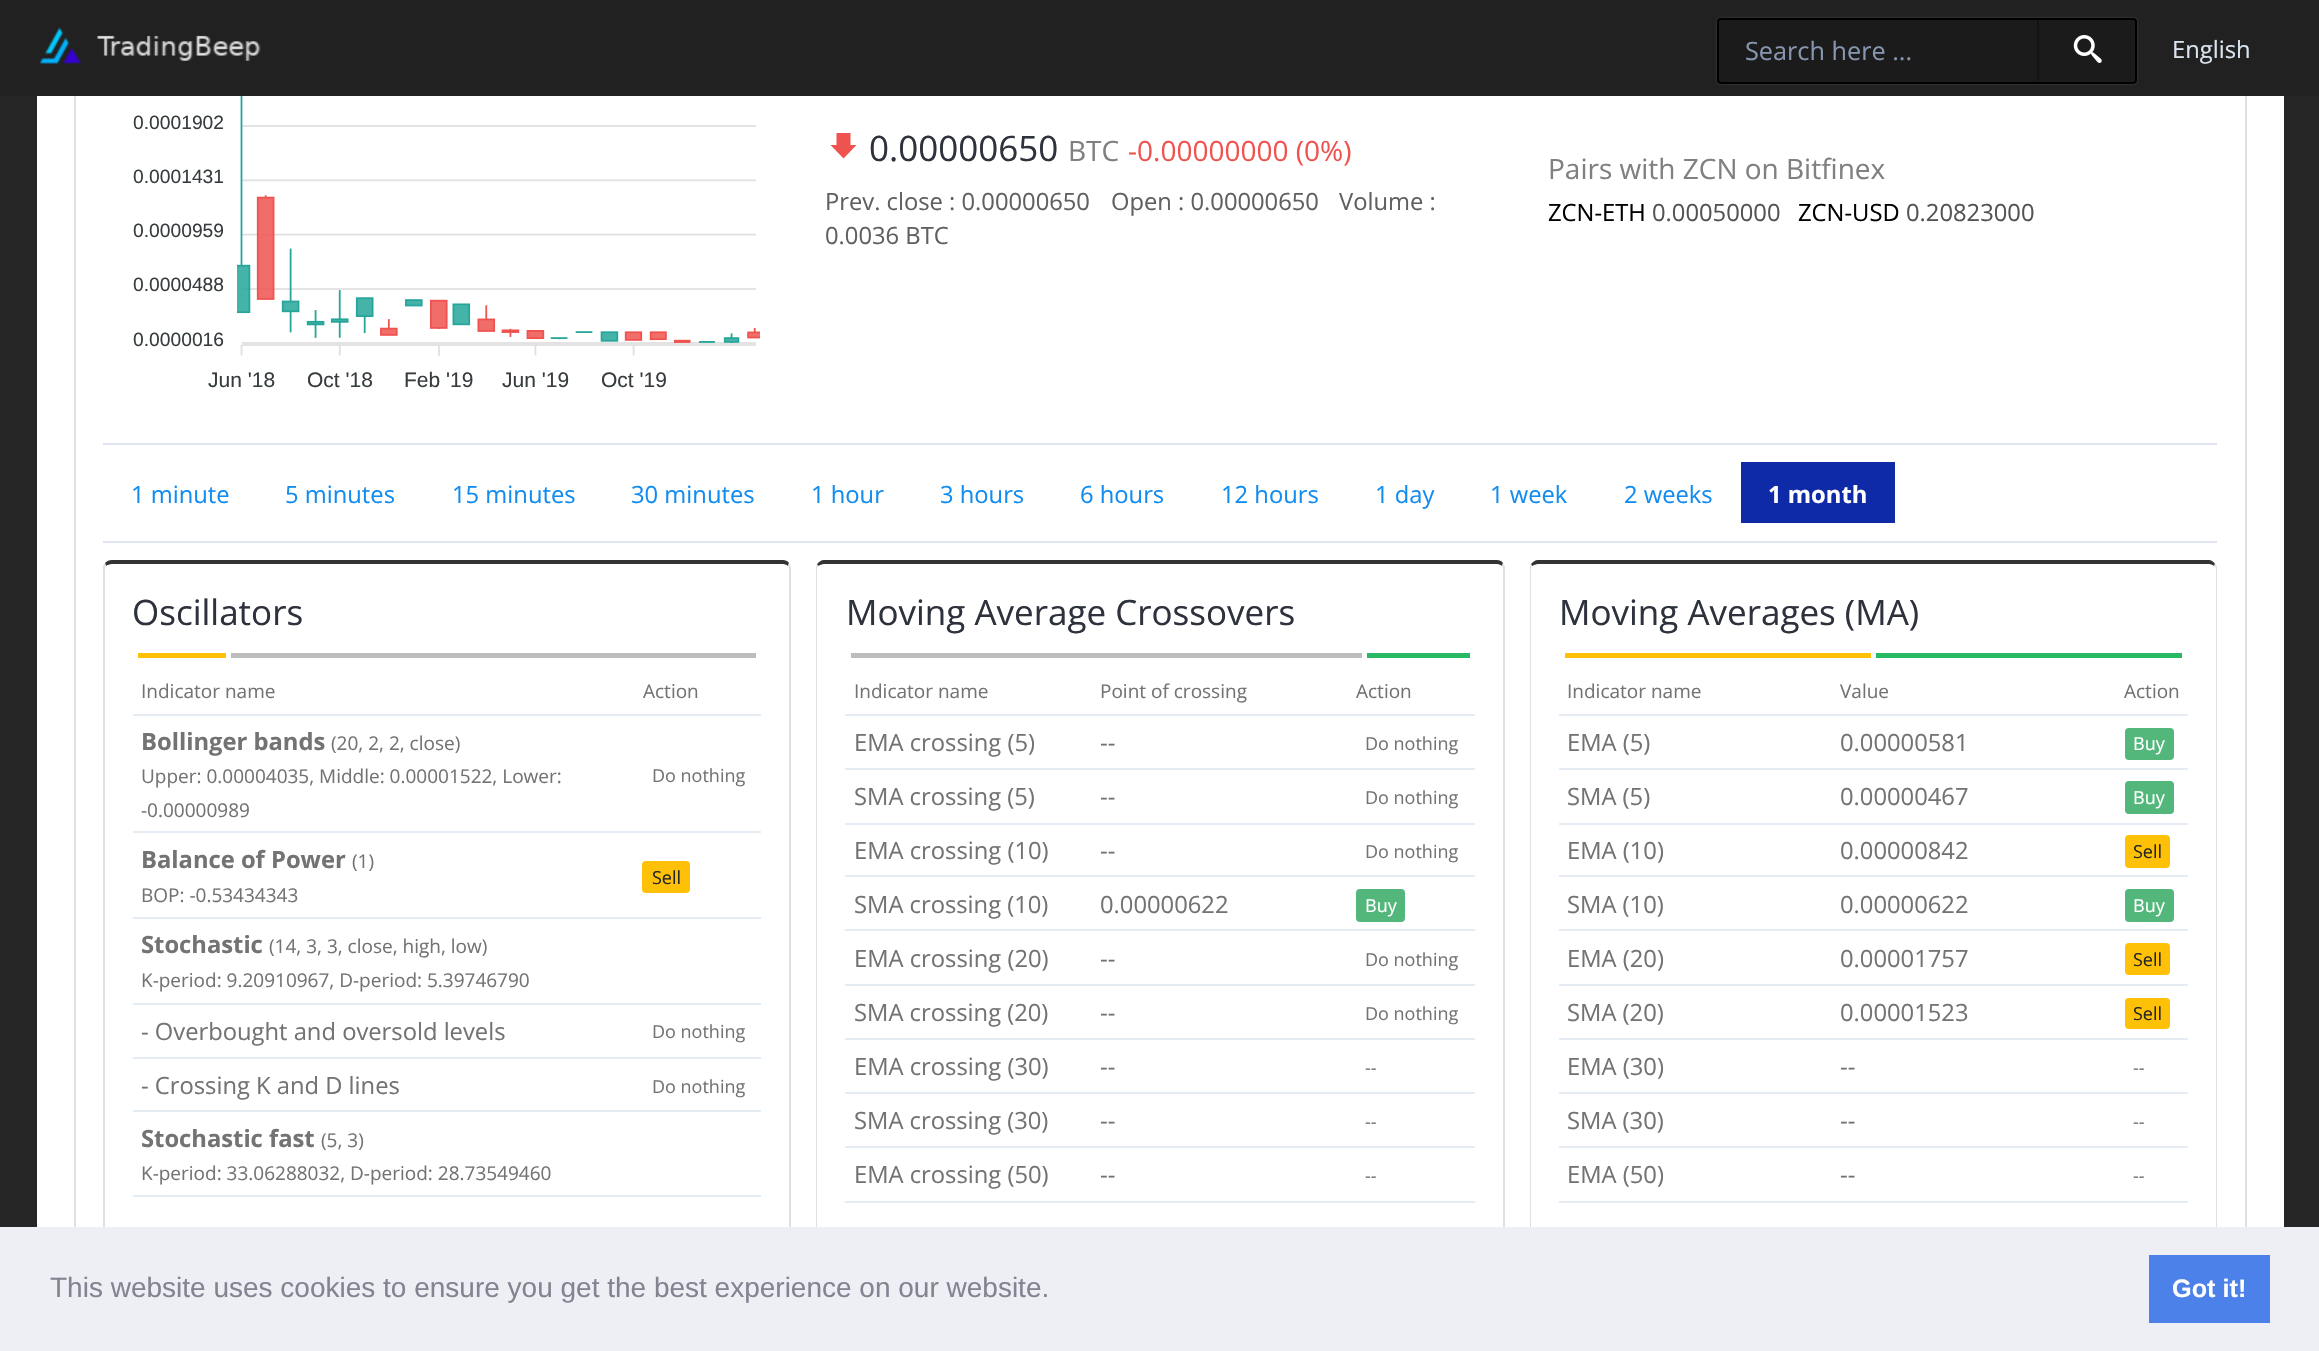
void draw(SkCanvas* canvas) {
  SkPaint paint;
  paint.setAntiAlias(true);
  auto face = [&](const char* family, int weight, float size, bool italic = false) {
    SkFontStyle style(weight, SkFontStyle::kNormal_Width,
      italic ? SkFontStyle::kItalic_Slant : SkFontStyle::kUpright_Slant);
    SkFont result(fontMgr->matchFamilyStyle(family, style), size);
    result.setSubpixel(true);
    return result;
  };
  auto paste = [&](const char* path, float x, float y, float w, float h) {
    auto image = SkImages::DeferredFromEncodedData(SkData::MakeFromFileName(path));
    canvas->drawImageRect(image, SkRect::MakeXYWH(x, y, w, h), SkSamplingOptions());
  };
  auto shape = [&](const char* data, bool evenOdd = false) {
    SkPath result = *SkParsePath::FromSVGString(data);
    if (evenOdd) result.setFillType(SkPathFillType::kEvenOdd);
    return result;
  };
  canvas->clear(0xff262626);
  paint.setColor(0xffffffff);
  canvas->drawRect(SkRect::MakeXYWH(37, 96, 2247, 1131), paint);
  paint.setStroke(true);
  paint.setStrokeWidth(2);
  paint.setColor(0xffe0e0e0);
  canvas->drawRect(SkRect::MakeXYWH(75, -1, 2171, 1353), paint);
  paint.setStroke(false);
  paint.setColor(0xff212121);
  canvas->drawRect(SkRect::MakeXYWH(0, 0, 2319, 96), paint);
  paste("img/1.png", 39, 27, 222, 37);
  canvas->save();
  canvas->clipPath(shape("M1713 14H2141V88H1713ZM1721 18H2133C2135 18 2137 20 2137 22V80C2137 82 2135 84 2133 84H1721C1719 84 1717 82 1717 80V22C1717 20 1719 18 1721 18Z", true), true);
  paint.setColor(0xff4d4c4c);
  paint.setMaskFilter(SkMaskFilter::MakeBlur(kNormal_SkBlurStyle, 1));
  canvas->drawRoundRect(SkRect::MakeXYWH(1717, 18, 420, 66), 4, 4, paint);
  paint.setMaskFilter(nullptr);
  canvas->restore();
  paint.setColor(0x33000000);
  canvas->drawRoundRect(SkRect::MakeXYWH(1718, 19, 418, 64), 3, 3, paint);
  paint.setStroke(true);
  paint.setColor(0xff000000);
  canvas->drawRoundRect(SkRect::MakeXYWH(1718, 19, 418, 64), 3, 3, paint);
  paint.setStroke(false);
  paint.setColor(0x4d000000);
  canvas->drawRect(SkRect::MakeXYWH(2037, 18, 2, 63), paint);
  paste("img/2.png", 2073, 35, 29, 28);
  paste("img/3.png", 237, 96, 523, 260);
  paint.setColor(0xffef5350);
  canvas->drawPath(shape("M830.5 145H836.5V133H850.5V145H856.5L843.5 158.5Z"), paint);
  {
    const struct { float x, y, w, h; SkColor color; } items[] = {
      {103, 443, 2114, 2, 0xffe1e5f1},
      {1741, 462, 154, 61, 0xff0e2aa7},
      {103, 541, 2114, 2, 0xffe1e5f1},
    };
    for (auto [x, y, w, h, color] : items) {
      paint.setColor(color);
      canvas->drawRect(SkRect::MakeXYWH(x, y, w, h), paint);
    }
  }
  paint.setColor(0xff333333);
  canvas->drawPath(shape("M112 560C109 560 107 561 105 563L106 566C107 565 110 564 112 564H783C785 564 787 565 788 566L789 563C788 561 785 560 783 560Z"), paint);
  paint.setColor(0xffe0e0e0);
  canvas->drawPath(shape("M791 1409V567L789 563L788 566L789 568V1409C789 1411 788 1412 787 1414L789 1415C790 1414 791 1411 791 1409Z"), paint);
  canvas->drawPath(shape("M103 566L105 563L106 566C105 566 105 567 105 568V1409C105 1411 106 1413 107 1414L106 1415C104 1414 104 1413 103 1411Z"), paint);
  {
    const struct { float x, y, w, h; SkColor color; } items[] = {
      {138, 653, 88, 5, 0xffffc107},
      {231, 653, 525, 5, 0xffbdbdbd},
      {133, 714, 628, 2, 0xffe6ecf3},
      {133, 831, 628, 2, 0xffe6ecf3},
    };
    for (auto [x, y, w, h, color] : items) {
      paint.setColor(color);
      canvas->drawRect(SkRect::MakeXYWH(x, y, w, h), paint);
    }
  }
  paint.setColor(0xffffc107);
  canvas->drawRoundRect(SkRect::MakeXYWH(642, 861, 48, 32), 4, 4, paint);
  {
    const struct { float x, y, w, h; SkColor color; } items[] = {
      {133, 917, 628, 2, 0xffe6ecf3},
      {133, 1003, 628, 2, 0xffe6ecf3},
      {133, 1057, 628, 2, 0xffe6ecf3},
      {133, 1110, 628, 2, 0xffe6ecf3},
      {133, 1195, 628, 2, 0xffe6ecf3},
    };
    for (auto [x, y, w, h, color] : items) {
      paint.setColor(color);
      canvas->drawRect(SkRect::MakeXYWH(x, y, w, h), paint);
    }
  }
  paint.setColor(0xff333333);
  canvas->drawPath(shape("M824 560C821 560 819 562 817 564L818 566C820 565 822 564 824 564H1497C1499 564 1501 565 1502 566L1503 563C1502 561 1499 560 1497 560Z"), paint);
  paint.setColor(0xffe0e0e0);
  canvas->drawPath(shape("M1505 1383V567L1503 563L1502 566L1503 568V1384L1501 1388L1502 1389C1504 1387 1505 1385 1505 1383Z"), paint);
  canvas->drawPath(shape("M817 564C816 565 816 566 816 568V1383C816 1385 817 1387 818 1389L819 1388L817 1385V568L818 566Z"), paint);
  {
    const struct { float x, y, w, h; SkColor color; } items[] = {
      {851, 653, 511, 5, 0xffbdbdbd},
      {1367, 653, 103, 5, 0xff27b963},
      {845, 714, 630, 2, 0xffe6ecf3},
      {845, 768, 630, 2, 0xffe6ecf3},
      {845, 823, 630, 2, 0xffe6ecf3},
      {845, 875, 630, 2, 0xffe6ecf3},
    };
    for (auto [x, y, w, h, color] : items) {
      paint.setColor(color);
      canvas->drawRect(SkRect::MakeXYWH(x, y, w, h), paint);
    }
  }
  paint.setColor(0xff53b77c);
  canvas->drawRoundRect(SkRect::MakeXYWH(1356, 889, 49, 33), 4, 4, paint);
  {
    const struct { float x, y, w, h; SkColor color; } items[] = {
      {845, 929, 630, 2, 0xffe6ecf3},
      {845, 984, 630, 2, 0xffe6ecf3},
      {845, 1038, 630, 2, 0xffe6ecf3},
      {845, 1092, 630, 2, 0xffe6ecf3},
      {845, 1146, 630, 2, 0xffe6ecf3},
      {845, 1201, 630, 2, 0xffe6ecf3},
    };
    for (auto [x, y, w, h, color] : items) {
      paint.setColor(color);
      canvas->drawRect(SkRect::MakeXYWH(x, y, w, h), paint);
    }
  }
  paint.setColor(0xff333333);
  canvas->drawPath(shape("M1538 560C1535 560 1533 562 1531 564L1532 566C1534 565 1536 564 1538 564H2209C2211 564 2213 565 2214 566L2215 564C2214 562 2211 560 2209 560Z"), paint);
  paint.setColor(0xffe0e0e0);
  canvas->drawPath(shape("M2215 564C2216 565 2217 566 2217 568V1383C2217 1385 2216 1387 2214 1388C2215 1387 2216 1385 2216 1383V568C2216 567 2215 566 2214 566Z"), paint);
  canvas->drawPath(shape("M1531 564C1530 565 1530 566 1530 568V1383C1530 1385 1531 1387 1532 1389L1533 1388L1531 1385V568L1532 566Z"), paint);
  {
    const struct { float x, y, w, h; SkColor color; } items[] = {
      {1565, 653, 306, 5, 0xffffc107},
      {1876, 653, 306, 5, 0xff27b963},
      {1559, 714, 629, 2, 0xffe6ecf3},
    };
    for (auto [x, y, w, h, color] : items) {
      paint.setColor(color);
      canvas->drawRect(SkRect::MakeXYWH(x, y, w, h), paint);
    }
  }
  paint.setColor(0xff53b77c);
  canvas->drawRoundRect(SkRect::MakeXYWH(2125, 728, 49, 32), 4, 4, paint);
  paint.setColor(0xffe6ecf3);
  canvas->drawRect(SkRect::MakeXYWH(1559, 768, 629, 2), paint);
  paint.setColor(0xff53b77c);
  canvas->drawRoundRect(SkRect::MakeXYWH(2125, 781, 49, 33), 4, 4, paint);
  paint.setColor(0xffe6ecf3);
  canvas->drawRect(SkRect::MakeXYWH(1559, 823, 629, 2), paint);
  paint.setColor(0xffffc107);
  canvas->drawRoundRect(SkRect::MakeXYWH(2125, 835, 45, 33), 4, 4, paint);
  paint.setColor(0xffe6ecf3);
  canvas->drawRect(SkRect::MakeXYWH(1559, 875, 629, 2), paint);
  paint.setColor(0xff53b77c);
  canvas->drawRoundRect(SkRect::MakeXYWH(2125, 889, 49, 33), 4, 4, paint);
  paint.setColor(0xffe6ecf3);
  canvas->drawRect(SkRect::MakeXYWH(1559, 929, 629, 2), paint);
  paint.setColor(0xffffc107);
  canvas->drawRoundRect(SkRect::MakeXYWH(2125, 943, 45, 32), 4, 4, paint);
  paint.setColor(0xffe6ecf3);
  canvas->drawRect(SkRect::MakeXYWH(1559, 984, 629, 2), paint);
  paint.setColor(0xffffc107);
  canvas->drawRoundRect(SkRect::MakeXYWH(2125, 998, 45, 31), 4, 4, paint);
  {
    const struct { float x, y, w, h; SkColor color; } items[] = {
      {1559, 1038, 629, 2, 0xffe6ecf3},
      {1559, 1092, 629, 2, 0xffe6ecf3},
      {1559, 1146, 629, 2, 0xffe6ecf3},
      {1559, 1201, 629, 2, 0xffe6ecf3},
      {0, 1227, 2319, 124, 0xffedeff5},
      {2149, 1255, 121, 68, 0xff4b81e8},
    };
    for (auto [x, y, w, h, color] : items) {
      paint.setColor(color);
      canvas->drawRect(SkRect::MakeXYWH(x, y, w, h), paint);
    }
  }
  auto f0 = face("Open Sans", 400, 25.25f);
  paint.setColor(0xff8796af);
  canvas->drawString("Search here ...", 1745, 60, f0, paint);
  auto f1 = face("Open Sans", 400, 23.75f);
  paint.setColor(0xffdae4ef);
  canvas->drawString("English", 2172, 58, f1, paint);
  auto f2 = face("Liberation Sans", 400, 19.25f);
  paint.setColor(0xff373d3f);
  {
    const struct { const char* s; float x, y; } items[] = {
      {"0.0001902", 133, 129},
      {"0.0001431", 133, 183},
      {"0.0000959", 133, 237},
      {"0.0000488", 133, 291},
      {"0.0000016", 133, 346},
    };
    for (auto [s, x, y] : items) {
      canvas->drawString(s, x, y, f2, paint);
    }
  }
  auto f3 = face("Liberation Sans", 400, 21);
  {
    const struct { const char* s; float x, y; } items[] = {
      {"Jun '18", 208, 387},
      {"Oct '18", 307, 387},
      {"Feb '19", 404, 387},
      {"Jun '19", 502, 387},
      {"Oct '19", 601, 387},
    };
    for (auto [s, x, y] : items) {
      canvas->drawString(s, x, y, f3, paint);
    }
  }
  auto f4 = face("Open Sans", 400, 35);
  paint.setColor(0xff2e323c);
  canvas->drawString("0.00000650", 869, 161, f4, paint);
  auto f5 = face("Open Sans", 400, 28);
  paint.setColor(0xff808080);
  canvas->drawString("BTC", 1068, 161, f5, paint);
  paint.setColor(0xffef5350);
  canvas->drawString("-0.00000000 (0%)", 1128, 161, f5, paint);
  paint.setColor(0xff606060);
  {
    const struct { const char* s; float x, y; } items[] = {
      {"Prev. close : 0.00000650", 825, 210},
      {"Open : 0.00000650", 1111, 210},
      {"Volume :", 1339, 210},
      {"0.0036 BTC", 825, 244},
    };
    for (auto [s, x, y] : items) {
      canvas->drawString(s, x, y, f1, paint);
    }
  }
  paint.setColor(0xff808080);
  canvas->drawString("Pairs with ZCN on Bitfinex", 1548, 179, f5, paint);
  paint.setColor(0xff000000);
  canvas->drawString("ZCN-ETH", 1548, 221, f1, paint);
  paint.setColor(0xff535353);
  canvas->drawString("0.00050000", 1652, 221, f1, paint);
  paint.setColor(0xff000000);
  canvas->drawString("ZCN-USD", 1798, 221, f1, paint);
  paint.setColor(0xff535353);
  canvas->drawString("0.20823000", 1906, 221, f1, paint);
  paint.setColor(0xff118cf1);
  {
    const struct { const char* s; float x, y; } items[] = {
      {"1 minute", 131, 503},
      {"5 minutes", 285, 503},
      {"15 minutes", 452, 503},
      {"30 minutes", 631, 503},
      {"1 hour", 811, 503},
      {"3 hours", 940, 503},
      {"6 hours", 1080, 503},
      {"12 hours", 1221, 503},
      {"1 day", 1375, 503},
      {"1 week", 1490, 503},
      {"2 weeks", 1624, 503},
    };
    for (auto [s, x, y] : items) {
      canvas->drawString(s, x, y, f1, paint);
    }
  }
  auto f6 = face("Open Sans", 700, 23.75f);
  paint.setColor(0xffffffff);
  canvas->drawString("1 month", 1768, 503, f6, paint);
  paint.setColor(0xff2e323c);
  canvas->drawString("Oscillators", 132, 625, f4, paint);
  auto f7 = face("Open Sans", 400, 19);
  paint.setColor(0xff737373);
  canvas->drawString("Indicator name", 141, 698, f7, paint);
  canvas->drawString("Action", 643, 698, f7, paint);
  canvas->drawString("Bollinger bands", 141, 750, f6, paint);
  {
    const struct { const char* s; float x, y; } items[] = {
      {"(20, 2, 2, close)", 331, 750},
      {"Upper: 0.00004035, Middle: 0.00001522, Lower:", 141, 783},
      {"-0.00000989", 141, 817},
    };
    for (auto [s, x, y] : items) {
      canvas->drawString(s, x, y, f7, paint);
    }
  }
  auto f8 = face("Open Sans", 400, 18);
  canvas->drawString("Do nothing", 652, 782, f8, paint);
  canvas->drawString("Balance of Power", 141, 868, f6, paint);
  canvas->drawString("(1)", 352, 868, f7, paint);
  canvas->drawString("BOP: -0.53434343", 141, 902, f7, paint);
  paint.setColor(0xff212529);
  canvas->drawString("Sell", 652, 884, f8, paint);
  paint.setColor(0xff737373);
  canvas->drawString("Stochastic", 141, 953, f6, paint);
  canvas->drawString("(14, 3, 3, close, high, low)", 269, 953, f7, paint);
  canvas->drawString("K-period: 9.20910967, D-period: 5.39746790", 141, 987, f7, paint);
  canvas->drawString("- Overbought and oversold levels", 141, 1040, f1, paint);
  canvas->drawString("Do nothing", 652, 1038, f8, paint);
  canvas->drawString("- Crossing K and D lines", 141, 1094, f1, paint);
  canvas->drawString("Do nothing", 652, 1093, f8, paint);
  canvas->drawString("Stochastic fast", 141, 1147, f6, paint);
  canvas->drawString("(5, 3)", 321, 1147, f7, paint);
  canvas->drawString("K-period: 33.06288032, D-period: 28.73549460", 141, 1180, f7, paint);
  paint.setColor(0xff2e323c);
  canvas->drawString("Moving Average Crossovers", 846, 625, f4, paint);
  paint.setColor(0xff737373);
  {
    const struct { const char* s; float x, y; } items[] = {
      {"Indicator name", 854, 698},
      {"Point of crossing", 1100, 698},
      {"Action", 1356, 698},
    };
    for (auto [s, x, y] : items) {
      canvas->drawString(s, x, y, f7, paint);
    }
  }
  canvas->drawString("EMA crossing (5)", 854, 751, f1, paint);
  canvas->drawString("--", 1100, 751, f1, paint);
  canvas->drawString("Do nothing", 1365, 750, f8, paint);
  canvas->drawString("SMA crossing (5)", 854, 805, f1, paint);
  canvas->drawString("--", 1100, 805, f1, paint);
  canvas->drawString("Do nothing", 1365, 804, f8, paint);
  canvas->drawString("EMA crossing (10)", 854, 859, f1, paint);
  canvas->drawString("--", 1100, 859, f1, paint);
  canvas->drawString("Do nothing", 1365, 858, f8, paint);
  canvas->drawString("SMA crossing (10)", 854, 913, f1, paint);
  canvas->drawString("0.00000622", 1100, 913, f1, paint);
  paint.setColor(0xffffffff);
  canvas->drawString("Buy", 1365, 912, f8, paint);
  paint.setColor(0xff737373);
  canvas->drawString("EMA crossing (20)", 854, 967, f1, paint);
  canvas->drawString("--", 1100, 967, f1, paint);
  canvas->drawString("Do nothing", 1365, 966, f8, paint);
  canvas->drawString("SMA crossing (20)", 854, 1021, f1, paint);
  canvas->drawString("--", 1100, 1021, f1, paint);
  canvas->drawString("Do nothing", 1365, 1020, f8, paint);
  canvas->drawString("EMA crossing (30)", 854, 1075, f1, paint);
  canvas->drawString("--", 1100, 1075, f1, paint);
  canvas->drawString("--", 1365, 1074, f8, paint);
  canvas->drawString("SMA crossing (30)", 854, 1129, f1, paint);
  canvas->drawString("--", 1100, 1129, f1, paint);
  canvas->drawString("--", 1365, 1128, f8, paint);
  canvas->drawString("EMA crossing (50)", 854, 1183, f1, paint);
  canvas->drawString("--", 1100, 1183, f1, paint);
  canvas->drawString("--", 1365, 1182, f8, paint);
  paint.setColor(0xff2e323c);
  canvas->drawString("Moving Averages (MA)", 1559, 625, f4, paint);
  paint.setColor(0xff737373);
  {
    const struct { const char* s; float x, y; } items[] = {
      {"Indicator name", 1567, 698},
      {"Value", 1840, 698},
      {"Action", 2124, 698},
    };
    for (auto [s, x, y] : items) {
      canvas->drawString(s, x, y, f7, paint);
    }
  }
  canvas->drawString("EMA (5)", 1567, 751, f1, paint);
  canvas->drawString("0.00000581", 1840, 751, f1, paint);
  paint.setColor(0xffffffff);
  canvas->drawString("Buy", 2133, 750, f8, paint);
  paint.setColor(0xff737373);
  canvas->drawString("SMA (5)", 1567, 805, f1, paint);
  canvas->drawString("0.00000467", 1840, 805, f1, paint);
  paint.setColor(0xffffffff);
  canvas->drawString("Buy", 2133, 804, f8, paint);
  paint.setColor(0xff737373);
  canvas->drawString("EMA (10)", 1567, 859, f1, paint);
  canvas->drawString("0.00000842", 1840, 859, f1, paint);
  paint.setColor(0xff212529);
  canvas->drawString("Sell", 2133, 858, f8, paint);
  paint.setColor(0xff737373);
  canvas->drawString("SMA (10)", 1567, 913, f1, paint);
  canvas->drawString("0.00000622", 1840, 913, f1, paint);
  paint.setColor(0xffffffff);
  canvas->drawString("Buy", 2133, 912, f8, paint);
  paint.setColor(0xff737373);
  canvas->drawString("EMA (20)", 1567, 967, f1, paint);
  canvas->drawString("0.00001757", 1840, 967, f1, paint);
  paint.setColor(0xff212529);
  canvas->drawString("Sell", 2133, 966, f8, paint);
  paint.setColor(0xff737373);
  canvas->drawString("SMA (20)", 1567, 1021, f1, paint);
  canvas->drawString("0.00001523", 1840, 1021, f1, paint);
  paint.setColor(0xff212529);
  canvas->drawString("Sell", 2133, 1020, f8, paint);
  paint.setColor(0xff737373);
  canvas->drawString("EMA (30)", 1567, 1075, f1, paint);
  canvas->drawString("--", 1840, 1075, f1, paint);
  canvas->drawString("--", 2133, 1074, f8, paint);
  canvas->drawString("SMA (30)", 1567, 1129, f1, paint);
  canvas->drawString("--", 1840, 1129, f1, paint);
  canvas->drawString("--", 2133, 1128, f8, paint);
  canvas->drawString("EMA (50)", 1567, 1183, f1, paint);
  canvas->drawString("--", 1840, 1183, f1, paint);
  canvas->drawString("--", 2133, 1182, f8, paint);
  auto f9 = face("Liberation Sans", 400, 28);
  paint.setColor(0xff838391);
  canvas->drawString("This website uses cookies to ensure you get the best experience on our website.", 50, 1297, f9, paint);
  auto f10 = face("Liberation Sans", 700, 25.25f);
  paint.setColor(0xffffffff);
  canvas->drawString("Got it!", 2172, 1297, f10, paint);
}
